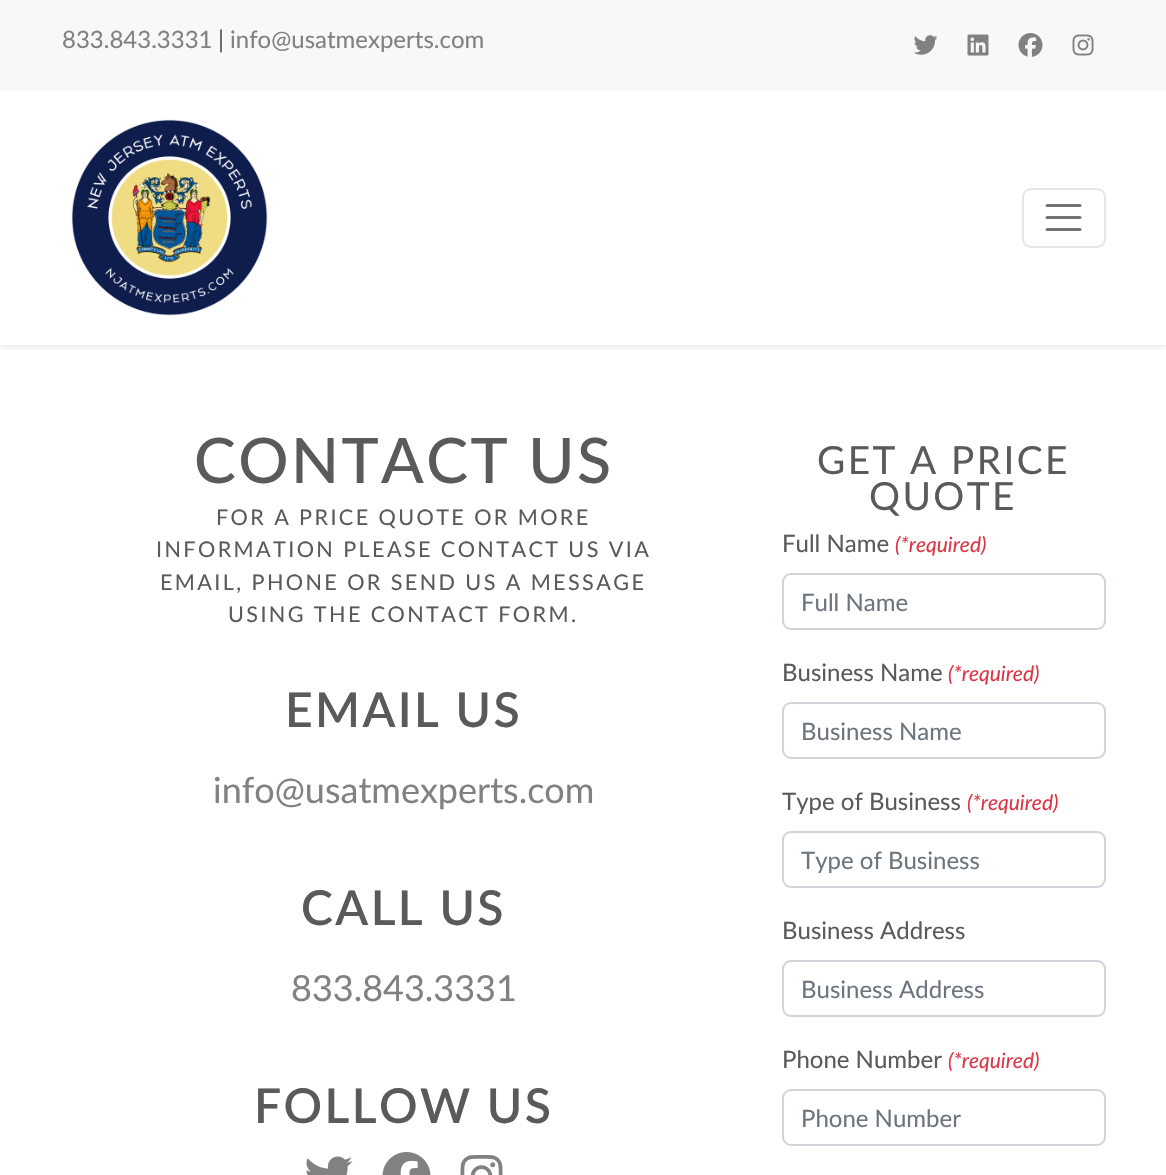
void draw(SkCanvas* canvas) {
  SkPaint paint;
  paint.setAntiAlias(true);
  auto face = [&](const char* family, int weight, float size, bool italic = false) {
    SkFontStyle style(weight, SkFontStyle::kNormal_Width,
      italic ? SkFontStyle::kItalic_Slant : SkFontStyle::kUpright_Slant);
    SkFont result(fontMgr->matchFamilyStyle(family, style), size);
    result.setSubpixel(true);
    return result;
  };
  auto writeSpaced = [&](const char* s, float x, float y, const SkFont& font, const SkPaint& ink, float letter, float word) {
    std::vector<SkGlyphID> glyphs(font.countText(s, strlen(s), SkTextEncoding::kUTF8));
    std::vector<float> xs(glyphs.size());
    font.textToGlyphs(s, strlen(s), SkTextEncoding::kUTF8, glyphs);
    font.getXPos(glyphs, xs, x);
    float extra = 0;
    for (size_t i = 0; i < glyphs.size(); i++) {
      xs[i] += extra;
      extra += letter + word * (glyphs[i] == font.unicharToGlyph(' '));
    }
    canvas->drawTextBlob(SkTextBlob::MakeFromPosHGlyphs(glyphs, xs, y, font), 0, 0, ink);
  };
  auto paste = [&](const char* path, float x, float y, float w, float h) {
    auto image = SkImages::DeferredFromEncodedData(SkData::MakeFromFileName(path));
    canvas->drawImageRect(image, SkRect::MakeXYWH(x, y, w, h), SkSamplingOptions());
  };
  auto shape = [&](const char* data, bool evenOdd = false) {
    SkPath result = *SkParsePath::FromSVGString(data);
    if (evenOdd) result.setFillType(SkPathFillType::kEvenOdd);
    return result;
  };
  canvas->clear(0xffffffff);
  canvas->save();
  canvas->clipRect(SkRect::MakeXYWH(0, 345, 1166, 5));
  paint.setColor(0x12000000);
  paint.setMaskFilter(SkMaskFilter::MakeBlur(kNormal_SkBlurStyle, 3));
  canvas->drawRect(SkRect::MakeXYWH(0, 3, 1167, 345), paint);
  paint.setMaskFilter(nullptr);
  canvas->restore();
  paint.setColor(0xfff8f8f8);
  canvas->drawRect(SkRect::MakeXYWH(0, 0, 1166, 90), paint);
  paste("img/1.png", 913, 35, 25, 20);
  paste("img/2.png", 967, 34, 22, 22);
  paste("img/3.png", 1018, 33, 25, 24);
  paste("img/4.png", 1072, 34, 22, 22);
  paste("img/5.png", 71, 119, 197, 197);
  paint.setStroke(true);
  paint.setStrokeWidth(2);
  paint.setColor(0xffe6e6e6);
  canvas->drawRoundRect(SkRect::MakeXYWH(1023, 189, 82, 58), 8, 8, paint);
  paint.setStrokeWidth(3);
  paint.setStrokeCap(SkPaint::kRound_Cap);
  paint.setColor(0xff737373);
  canvas->drawPath(shape("M1047 205.5H1080M1047 217.5H1080M1047 229.5H1080"), paint);
  paste("img/6.png", 306, 1156, 47, 19);
  paste("img/7.png", 382, 1152, 49, 23);
  paste("img/8.png", 460, 1155, 43, 20);
  paint.setStrokeWidth(2);
  paint.setStrokeCap(SkPaint::kButt_Cap);
  paint.setColor(0xffced4da);
  canvas->drawRoundRect(SkRect::MakeXYWH(783, 574, 322, 55), 8, 8, paint);
  canvas->drawRoundRect(SkRect::MakeXYWH(783, 703, 322, 55), 8, 8, paint);
  canvas->drawRoundRect(SkRect::MakeXYWH(783, 832, 322, 55), 8, 8, paint);
  canvas->drawRoundRect(SkRect::MakeXYWH(783, 961, 322, 55), 8, 8, paint);
  canvas->drawRoundRect(SkRect::MakeXYWH(783, 1090, 322, 55), 8, 8, paint);
  auto f0 = face("Lato", 400, 24);
  paint.setStroke(false);
  paint.setColor(0xff818181);
  canvas->drawString("833.843.3331", 62, 48, f0, paint);
  paint.setColor(0xff5a5a5a);
  canvas->drawString("|", 218, 48, f0, paint);
  paint.setColor(0xff818181);
  canvas->drawString("info@usatmexperts.com", 230, 48, f0, paint);
  auto f1 = face("Lato", 500, 62.75f);
  paint.setColor(0xff5a5a5a);
  writeSpaced("CONTACT US", 194, 483, f1, paint, 2.4f, 0);
  auto f2 = face("Lato", 400, 21.6f);
  {
    const struct { const char* s; float x, y; } items[] = {
      {"FOR A PRICE QUOTE OR MORE", 216, 525},
      {"INFORMATION PLEASE CONTACT US VIA", 156, 557},
      {"EMAIL, PHONE OR SEND US A MESSAGE", 160, 590},
      {"USING THE CONTACT FORM.", 228, 622},
    };
    for (auto [s, x, y] : items) {
      writeSpaced(s, x, y, f2, paint, 2.4f, 0);
    }
  }
  auto f3 = face("Lato", 600, 48);
  writeSpaced("EMAIL US", 285, 727, f3, paint, 2.4f, 0);
  auto f4 = face("Lato", 400, 36);
  paint.setColor(0xff818181);
  canvas->drawString("info@usatmexperts.com", 213, 803, f4, paint);
  paint.setColor(0xff5a5a5a);
  writeSpaced("CALL US", 301, 925, f3, paint, 2.4f, 0);
  paint.setColor(0xff818181);
  canvas->drawString("833.843.3331", 291, 1001, f4, paint);
  paint.setColor(0xff5a5a5a);
  writeSpaced("FOLLOW US", 254, 1123, f3, paint, 2.4f, 0);
  auto f5 = face("Lato", 400, 38.75f);
  writeSpaced("GET A PRICE", 817, 474, f5, paint, 2.4f, 0);
  writeSpaced("QUOTE", 869, 510, f5, paint, 2.4f, 0);
  canvas->drawString("Full Name", 782, 552, f0, paint);
  auto f6 = face("Lato", 400, 21, true);
  paint.setColor(0xffdc3545);
  canvas->drawString("(*required)", 895, 552, f6, paint);
  paint.setColor(0xff6c757d);
  canvas->drawString("Full Name", 801, 611, f0, paint);
  paint.setColor(0xff5a5a5a);
  canvas->drawString("Business Name", 782, 681, f0, paint);
  paint.setColor(0xffdc3545);
  canvas->drawString("(*required)", 948, 681, f6, paint);
  paint.setColor(0xff6c757d);
  canvas->drawString("Business Name", 801, 740, f0, paint);
  paint.setColor(0xff5a5a5a);
  canvas->drawString("Type of Business", 782, 810, f0, paint);
  paint.setColor(0xffdc3545);
  canvas->drawString("(*required)", 967, 810, f6, paint);
  canvas->save();
  canvas->clipRect(SkRect::MakeXYWH(801, 845, 285, 28));
  paint.setColor(0xff6c757d);
  canvas->drawString("Type of Business", 801, 869, f0, paint);
  canvas->restore();
  paint.setColor(0xff5a5a5a);
  canvas->drawString("Business Address", 782, 939, f0, paint);
  paint.setColor(0xff6c757d);
  canvas->drawString("Business Address", 801, 998, f0, paint);
  paint.setColor(0xff5a5a5a);
  canvas->drawString("Phone Number", 782, 1068, f0, paint);
  paint.setColor(0xffdc3545);
  canvas->drawString("(*required)", 948, 1068, f6, paint);
  paint.setColor(0xff6c757d);
  canvas->drawString("Phone Number", 801, 1127, f0, paint);
}
